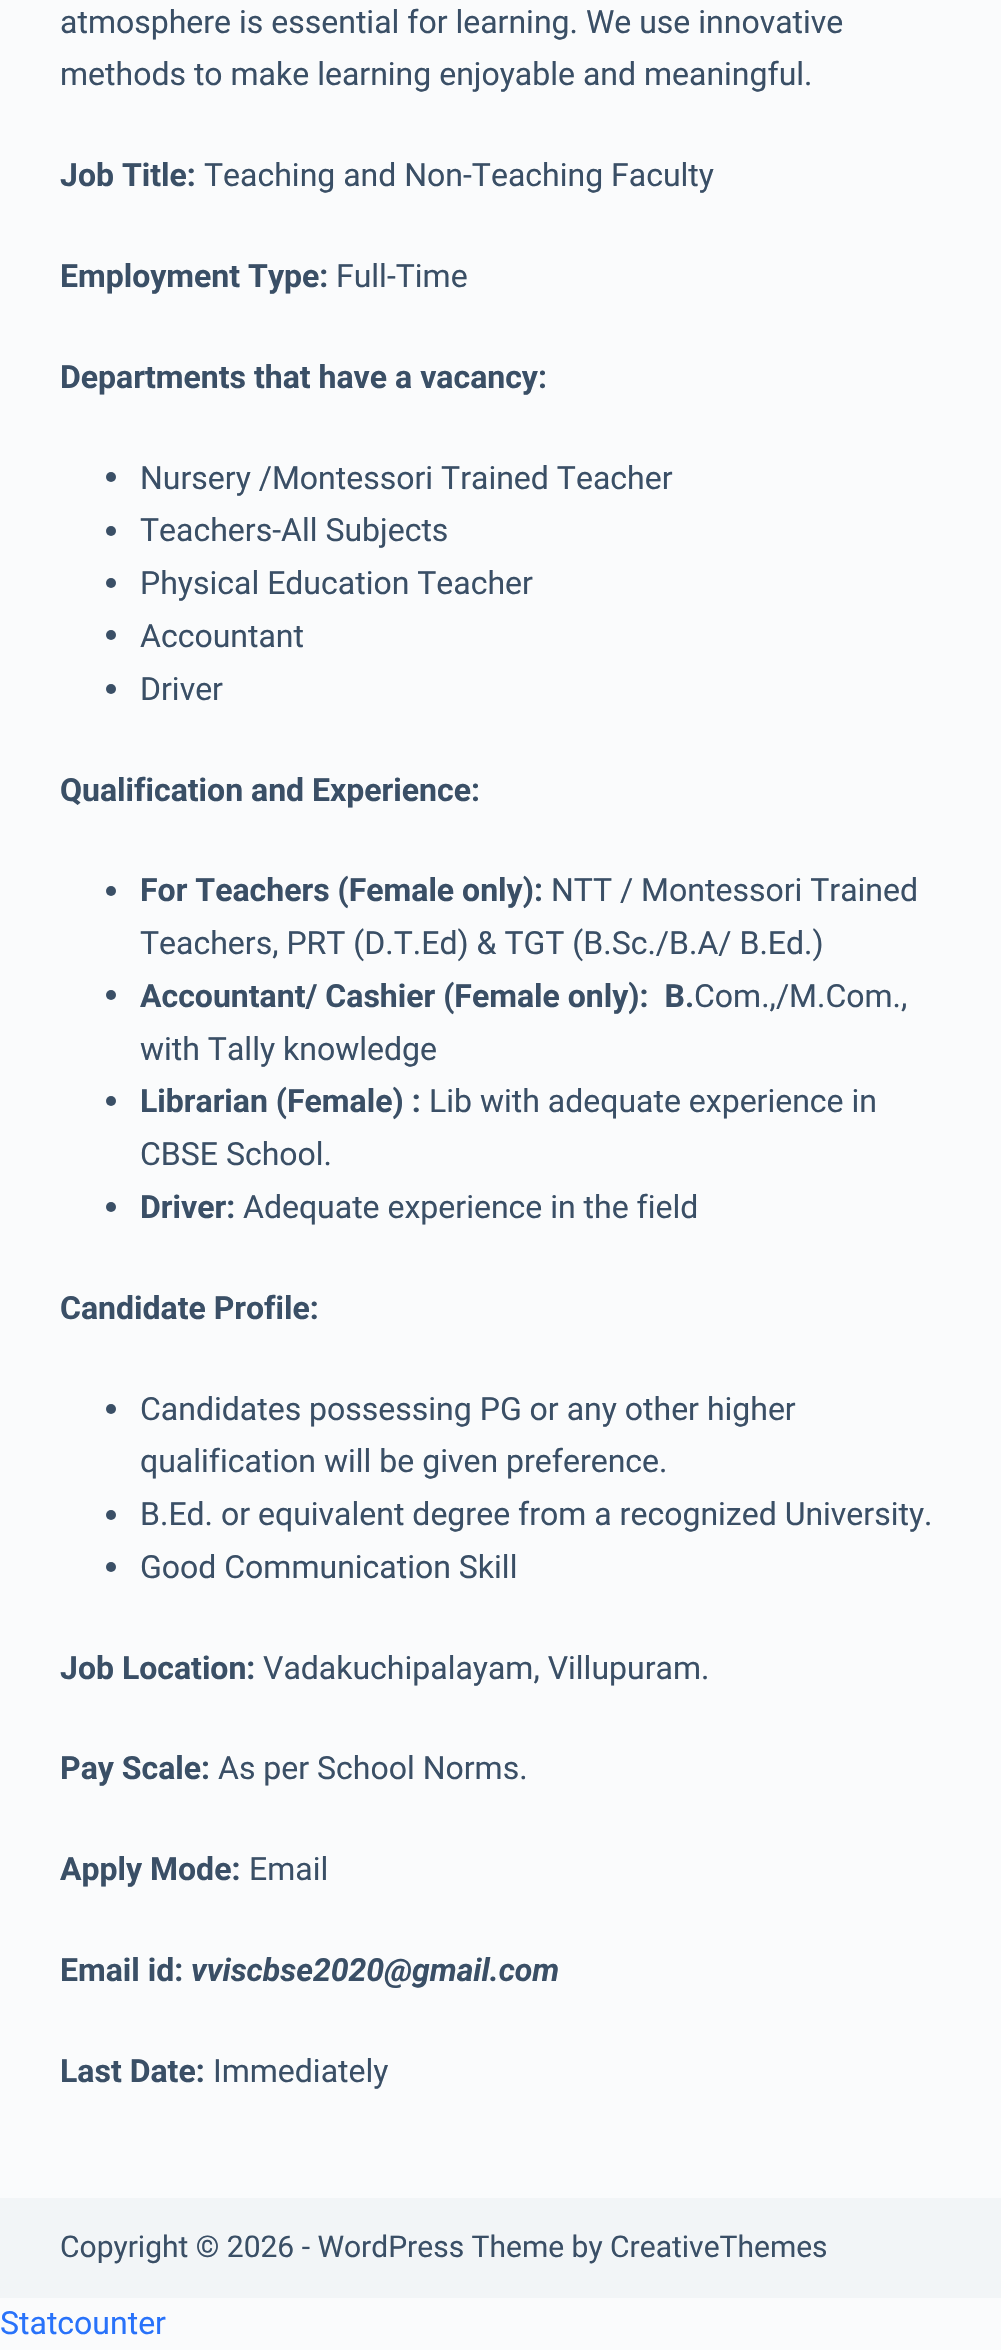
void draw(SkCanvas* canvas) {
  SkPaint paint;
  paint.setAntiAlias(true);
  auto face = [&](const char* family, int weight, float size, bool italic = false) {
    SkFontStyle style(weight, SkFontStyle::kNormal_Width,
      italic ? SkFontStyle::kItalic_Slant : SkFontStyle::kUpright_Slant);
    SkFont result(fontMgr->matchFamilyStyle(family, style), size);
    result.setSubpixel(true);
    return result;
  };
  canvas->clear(0xfffafbfc);
  paint.setColor(0xff3a4f66);
  canvas->drawCircle(111, 477, 5, paint);
  canvas->drawCircle(111, 531, 5, paint);
  canvas->drawCircle(111, 583, 5, paint);
  canvas->drawCircle(111, 635, 5, paint);
  canvas->drawCircle(111, 689, 5, paint);
  canvas->drawCircle(111, 891, 5, paint);
  canvas->drawCircle(111, 995, 5, paint);
  canvas->drawCircle(111, 1101, 5, paint);
  canvas->drawCircle(111, 1207, 5, paint);
  canvas->drawCircle(111, 1409, 5, paint);
  canvas->drawCircle(111, 1515, 5, paint);
  canvas->drawCircle(111, 1567, 5, paint);
  paint.setColor(0xfff2f5f7);
  canvas->drawRect(SkRect::MakeXYWH(0, 2198, 1001, 100), paint);
  auto f0 = face("Roboto", 400, 32);
  paint.setColor(0xff3a4f66);
  canvas->drawString("atmosphere is essential for learning. We use innovative", 60, 33, f0, paint);
  canvas->drawString("methods to make learning enjoyable and meaningful.", 60, 85, f0, paint);
  auto f1 = face("Roboto", 700, 32);
  canvas->drawString("Job Title:", 60, 186, f1, paint);
  canvas->drawString("Teaching and Non-Teaching Faculty", 204, 186, f0, paint);
  canvas->drawString("Employment Type:", 60, 287, f1, paint);
  canvas->drawString("Full-Time", 336, 287, f0, paint);
  canvas->drawString("Departments that have a vacancy:", 60, 388, f1, paint);
  {
    const struct { const char* s; float x, y; } items[] = {
      {"Nursery /Montessori Trained Teacher", 140, 489},
      {"Teachers-All Subjects", 140, 541},
      {"Physical Education Teacher", 140, 594},
      {"Accountant", 140, 647},
      {"Driver", 140, 700},
    };
    for (auto [s, x, y] : items) {
      canvas->drawString(s, x, y, f0, paint);
    }
  }
  canvas->drawString("Qualification and Experience:", 60, 801, f1, paint);
  canvas->drawString("For Teachers (Female only):", 140, 901, f1, paint);
  canvas->drawString("NTT / Montessori Trained", 551, 901, f0, paint);
  canvas->drawString("Teachers, PRT (D.T.Ed) & TGT (B.Sc./B.A/ B.Ed.)", 140, 954, f0, paint);
  canvas->drawString("Accountant/ Cashier (Female only):  B.", 140, 1007, f1, paint);
  canvas->drawString("Com.,/M.Com.,", 694, 1007, f0, paint);
  canvas->drawString("with Tally knowledge", 140, 1060, f0, paint);
  canvas->drawString("Librarian (Female) :", 140, 1112, f1, paint);
  canvas->drawString("Lib with adequate experience in", 429, 1112, f0, paint);
  canvas->drawString("CBSE School.", 140, 1165, f0, paint);
  canvas->drawString("Driver:", 140, 1218, f1, paint);
  canvas->drawString("Adequate experience in the field", 243, 1218, f0, paint);
  canvas->drawString("Candidate Profile:", 60, 1319, f1, paint);
  {
    const struct { const char* s; float x, y; } items[] = {
      {"Candidates possessing PG or any other higher", 140, 1420},
      {"qualification will be given preference.", 140, 1472},
      {"B.Ed. or equivalent degree from a recognized University.", 140, 1525},
      {"Good Communication Skill", 140, 1578},
    };
    for (auto [s, x, y] : items) {
      canvas->drawString(s, x, y, f0, paint);
    }
  }
  canvas->drawString("Job Location:", 60, 1679, f1, paint);
  canvas->drawString("Vadakuchipalayam, Villupuram.", 263, 1679, f0, paint);
  canvas->drawString("Pay Scale:", 60, 1779, f1, paint);
  canvas->drawString("As per School Norms.", 218, 1779, f0, paint);
  canvas->drawString("Apply Mode:", 60, 1880, f1, paint);
  canvas->drawString("Email", 249, 1880, f0, paint);
  canvas->drawString("Email id:", 60, 1981, f1, paint);
  auto f2 = face("Roboto", 700, 32, true);
  canvas->drawString("vviscbse2020@gmail.com", 191, 1981, f2, paint);
  canvas->drawString("Last Date:", 60, 2082, f1, paint);
  canvas->drawString("Immediately", 213, 2082, f0, paint);
  auto f3 = face("Roboto", 400, 30);
  canvas->drawString("Copyright © 2026 - WordPress Theme by CreativeThemes", 60, 2257, f3, paint);
  paint.setColor(0xff2872fa);
  canvas->drawString("Statcounter", 0, 2334, f0, paint);
}
